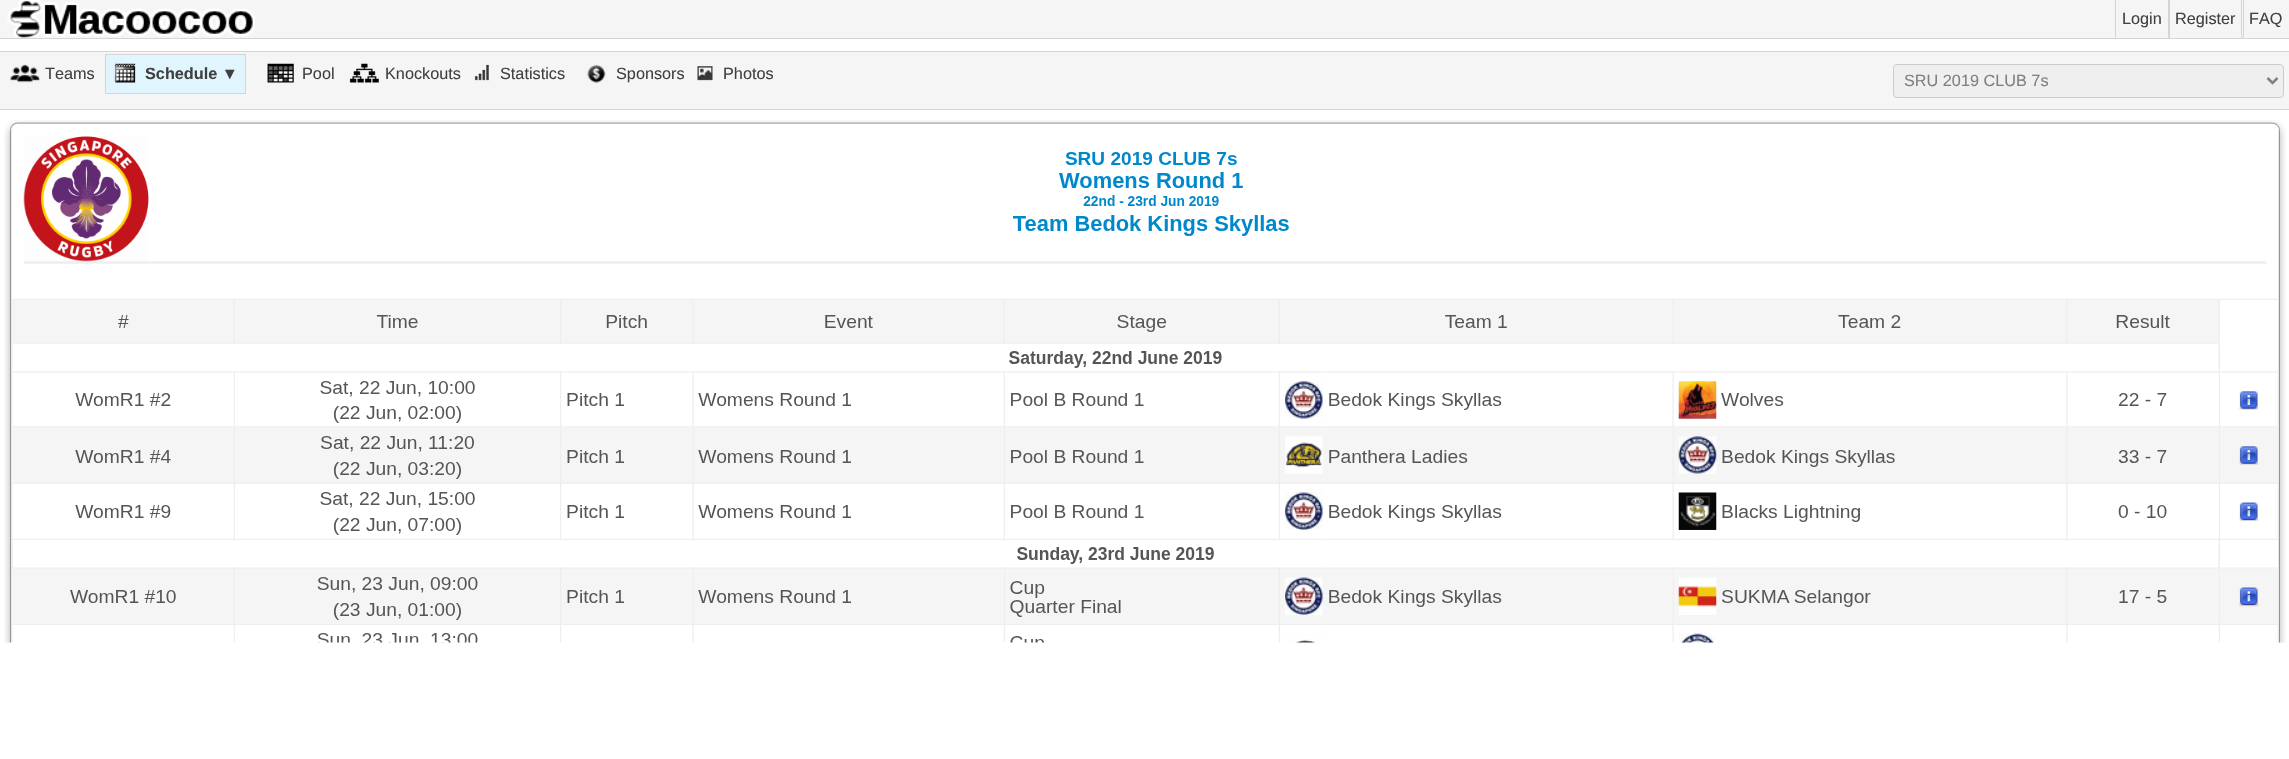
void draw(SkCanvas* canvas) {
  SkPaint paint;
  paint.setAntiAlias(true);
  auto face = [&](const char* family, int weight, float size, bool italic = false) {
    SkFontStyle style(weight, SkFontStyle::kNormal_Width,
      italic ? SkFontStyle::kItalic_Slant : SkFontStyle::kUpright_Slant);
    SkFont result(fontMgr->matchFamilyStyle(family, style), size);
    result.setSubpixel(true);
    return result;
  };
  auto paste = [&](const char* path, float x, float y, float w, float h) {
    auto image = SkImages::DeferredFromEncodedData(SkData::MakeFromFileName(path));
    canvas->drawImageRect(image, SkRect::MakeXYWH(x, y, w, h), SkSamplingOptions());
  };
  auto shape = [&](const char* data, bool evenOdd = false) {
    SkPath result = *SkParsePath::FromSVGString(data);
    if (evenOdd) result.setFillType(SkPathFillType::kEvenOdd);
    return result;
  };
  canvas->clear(0xffffffff);
  paint.setColor(0xfff5f5f5);
  canvas->drawRect(SkRect::MakeXYWH(0, 0, 2289, 38), paint);
  paint.setColor(0xffd5d5d5);
  canvas->drawRect(SkRect::MakeXYWH(0, 38, 2289, 1), paint);
  paste("img/1.png", 7, 0, 248, 38);
  {
    const struct { float x, y, w, h; SkColor color; } items[] = {
      {2168, 0, 2, 38, 0xffd5d5d5},
      {2115, 0, 1, 38, 0xffd5d5d5},
      {2243, 0, 1, 38, 0xffd5d5d5},
      {2241, 0, 1, 38, 0xffd5d5d5},
      {0, 52, 2289, 57, 0xfff5f5f5},
      {0, 51, 2289, 1, 0xffd5d5d5},
      {0, 109, 2289, 1, 0xffd5d5d5},
    };
    for (auto [x, y, w, h, color] : items) {
      paint.setColor(color);
      canvas->drawRect(SkRect::MakeXYWH(x, y, w, h), paint);
    }
  }
  paste("img/2.png", 10, 64, 31, 19);
  paint.setColor(0xffe1f5fe);
  canvas->drawRect(SkRect::MakeXYWH(105.5f, 54.5f, 140, 39), paint);
  paint.setStroke(true);
  paint.setStrokeWidth(1);
  paint.setColor(0xffd5d5d5);
  canvas->drawRect(SkRect::MakeXYWH(105.5f, 54.5f, 140, 39), paint);
  paste("img/3.png", 114, 63, 22, 20);
  paste("img/4.png", 267, 63, 27, 20);
  paste("img/5.png", 349, 63, 30, 20);
  paste("img/6.png", 474, 64, 15, 17);
  paste("img/7.png", 587, 64, 19, 19);
  paste("img/8.png", 697, 66, 16, 15);
  paint.setStroke(false);
  paint.setColor(0xffefefef);
  canvas->drawRoundRect(SkRect::MakeXYWH(1893.5f, 64.5f, 390, 33), 3.5f, 3.5f, paint);
  paint.setStroke(true);
  paint.setColor(0xffcccccc);
  canvas->drawRoundRect(SkRect::MakeXYWH(1893.5f, 64.5f, 390, 33), 3.5f, 3.5f, paint);
  paint.setStrokeWidth(2.5f);
  paint.setColor(0xff808080);
  canvas->drawPath(shape("M2267.5 78L2272.5 83L2277.5 78"), paint);
  paste("img/9.png", 4, 120, 2282, 523);
  auto f0 = face("Liberation Sans", 400, 16.25f);
  paint.setStroke(false);
  paint.setColor(0xff404040);
  {
    const struct { const char* s; float x, y; } items[] = {
      {"Login", 2122, 24},
      {"Register", 2175, 24},
      {"FAQ", 2249, 24},
      {"Teams", 45, 79},
    };
    for (auto [s, x, y] : items) {
      canvas->drawString(s, x, y, f0, paint);
    }
  }
  auto f1 = face("Liberation Sans", 700, 16.25f);
  canvas->drawString("Schedule ▼", 145, 79, f1, paint);
  {
    const struct { const char* s; float x, y; } items[] = {
      {"Pool", 302, 79},
      {"Knockouts", 385, 79},
      {"Statistics", 500, 79},
      {"Sponsors", 616, 79},
      {"Photos", 723, 79},
    };
    for (auto [s, x, y] : items) {
      canvas->drawString(s, x, y, f0, paint);
    }
  }
  paint.setColor(0xff808080);
  canvas->drawString("SRU 2019 CLUB 7s", 1904, 86, f0, paint);
}
